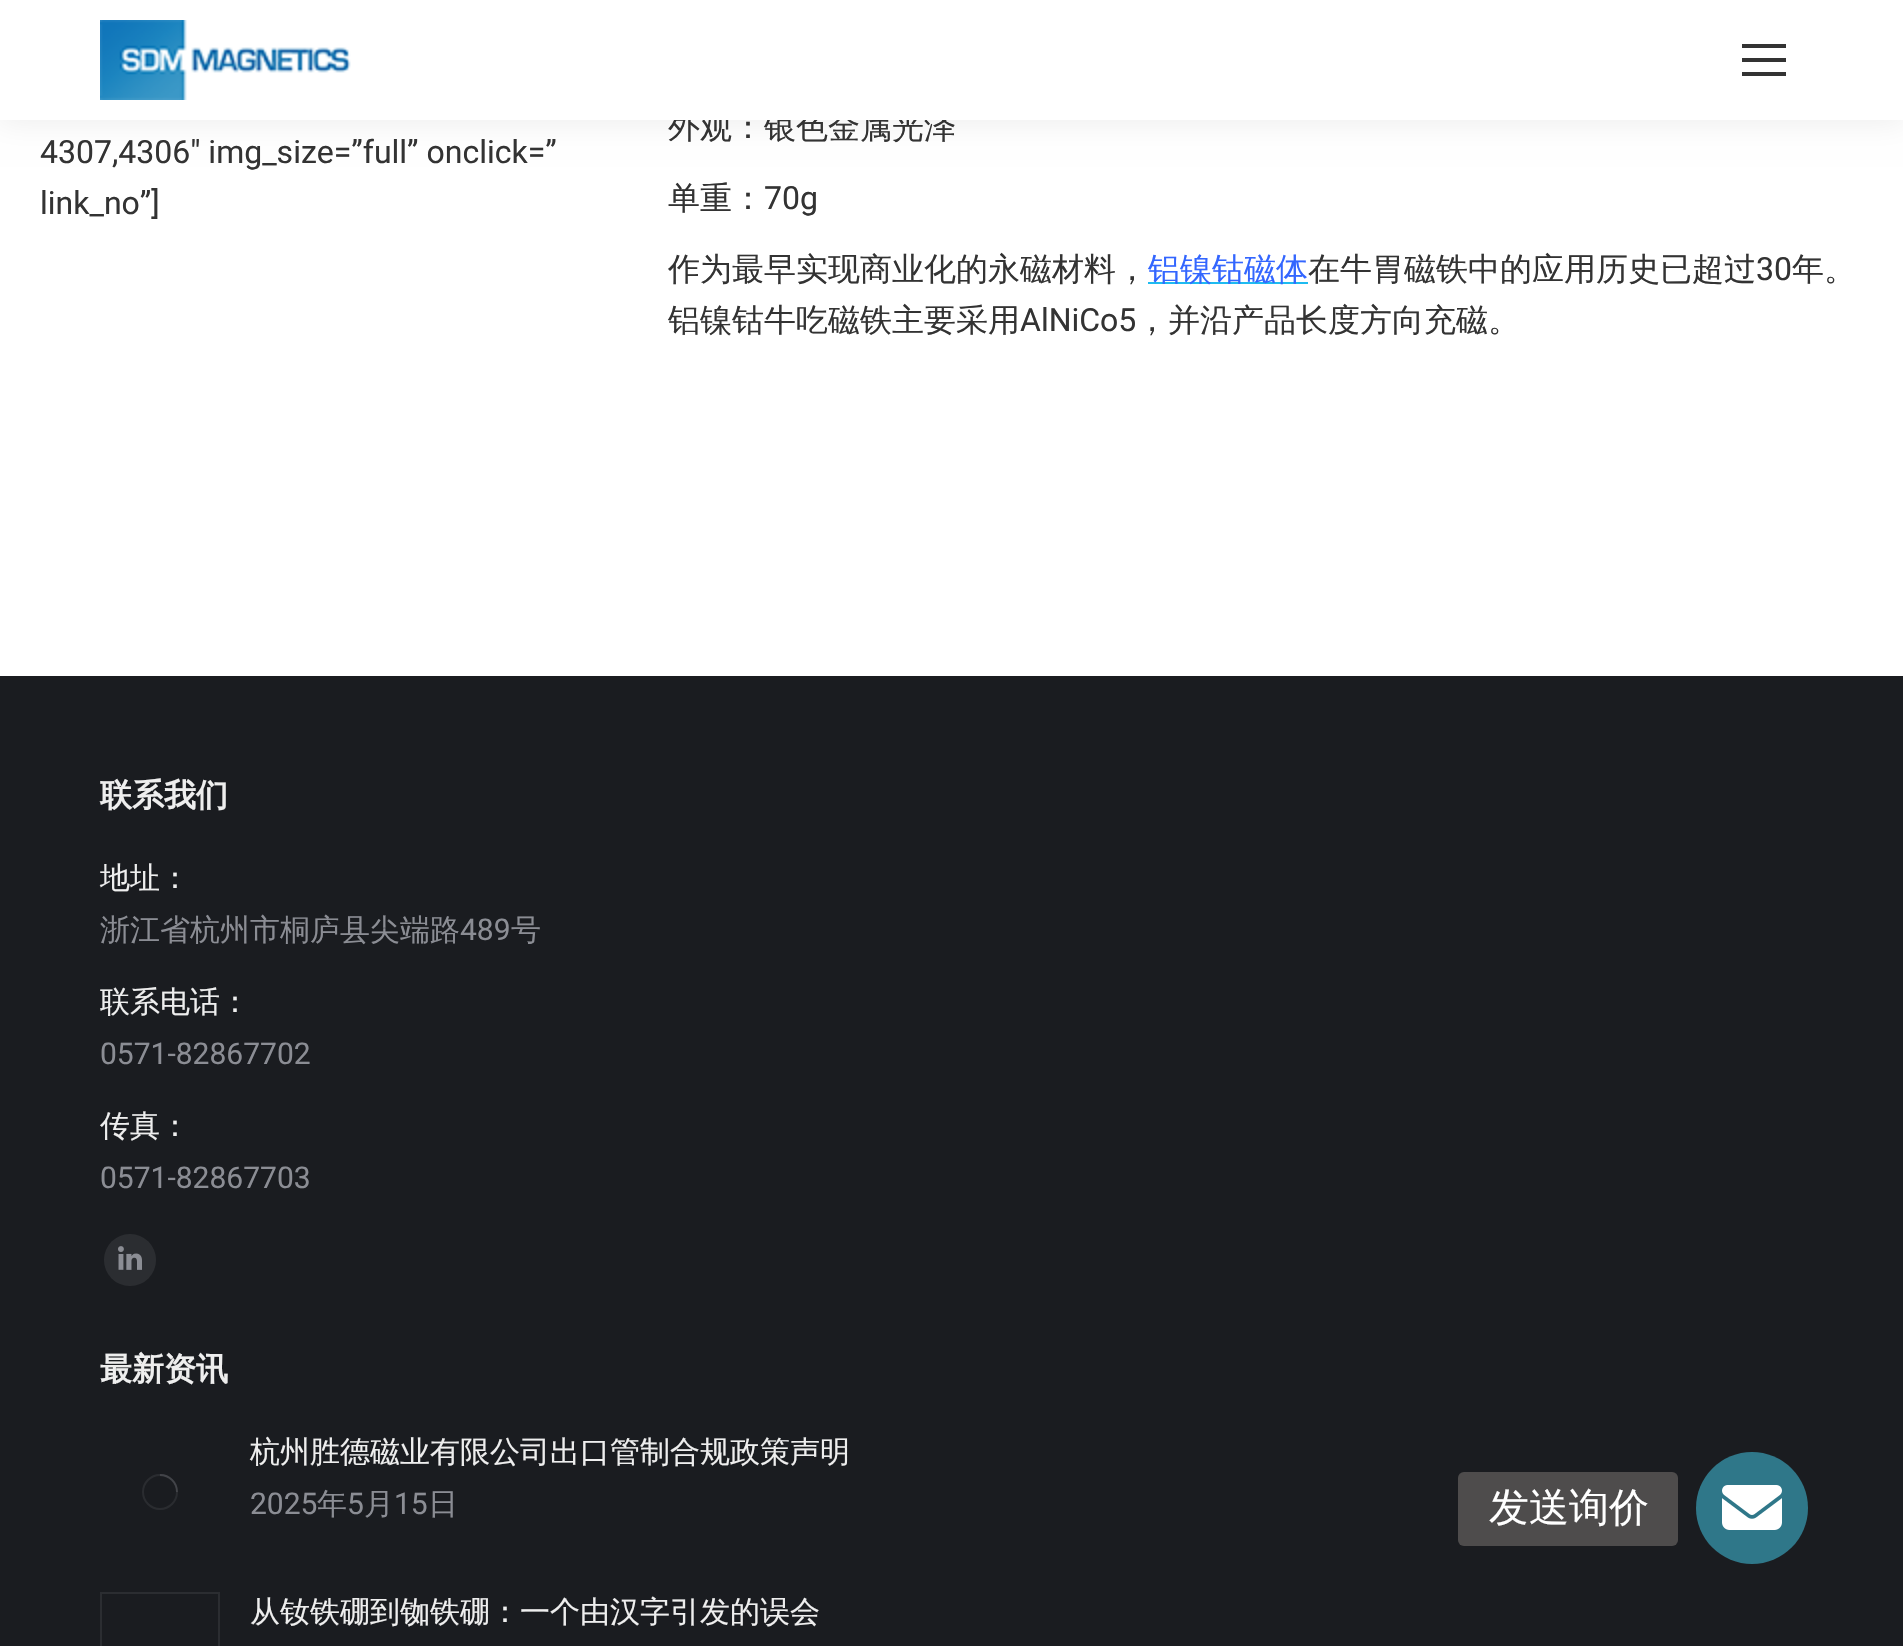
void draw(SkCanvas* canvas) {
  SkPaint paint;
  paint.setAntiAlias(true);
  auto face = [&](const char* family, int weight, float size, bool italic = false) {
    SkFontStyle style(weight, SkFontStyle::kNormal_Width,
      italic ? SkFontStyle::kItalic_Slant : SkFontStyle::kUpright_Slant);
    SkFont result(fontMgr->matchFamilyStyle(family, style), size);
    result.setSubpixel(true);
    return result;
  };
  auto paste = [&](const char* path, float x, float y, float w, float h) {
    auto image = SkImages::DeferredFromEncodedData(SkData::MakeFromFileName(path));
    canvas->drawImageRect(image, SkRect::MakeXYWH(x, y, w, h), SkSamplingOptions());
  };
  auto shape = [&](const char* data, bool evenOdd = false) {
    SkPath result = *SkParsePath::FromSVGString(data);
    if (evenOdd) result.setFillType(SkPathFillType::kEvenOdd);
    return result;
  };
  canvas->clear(0xffffffff);
  paint.setColor(0x12000000);
  paint.setMaskFilter(SkMaskFilter::MakeBlur(kNormal_SkBlurStyle, 15));
  canvas->drawRect(SkRect::MakeXYWH(-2, -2, 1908, 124), paint);
  paint.setMaskFilter(nullptr);
  paint.setColor(0xff1ebbf0);
  canvas->drawRect(SkRect::MakeXYWH(1148, 282, 160, 2), paint);
  paint.setColor(0xff1a1c20);
  canvas->drawRect(SkRect::MakeXYWH(0, 676, 1903, 970), paint);
  paint.setColor(0xff2b2d31);
  canvas->drawCircle(130, 1260, 26, paint);
  paste("img/2.png", 118, 1246, 24, 24);
  paint.setStroke(true);
  paint.setStrokeWidth(1.9f);
  paint.setColor(0xff2a2c30);
  canvas->drawCircle(160, 1492, 17, paint);
  paint.setColor(0x408b8d94);
  canvas->drawPath(shape("M177 1492C177 1482.5 169.5 1475 160 1475"), paint);
  paint.setStrokeWidth(2);
  paint.setColor(0xff2b2d31);
  canvas->drawRect(SkRect::MakeXYWH(101, 1593, 118, 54), paint);
  paint.setStroke(false);
  paint.setColor(0xff2f7789);
  canvas->drawCircle(1752, 1508, 56, paint);
  paint.setColor(0xff4e4c4c);
  canvas->drawRoundRect(SkRect::MakeXYWH(1458, 1472, 220, 74), 6, 6, paint);
  paste("img/3.png", 1722, 1485, 60, 45);
  auto f0 = face("Roboto", 400, 32);
  paint.setColor(0xff333333);
  canvas->drawString("4307,4306″ img_size=”full” onclick=”", 40, 163, f0, paint);
  canvas->drawString("link_no”]", 40, 214, f0, paint);
  auto f1 = face("WenQuanYi Zen Hei", 500, 32);
  canvas->drawString("外观：银色金属光泽", 668, 138, f1, paint);
  {
    const struct { float x, y, w, h; SkColor color; } items[] = {
      {0, 0, 1903, 120, 0xffffffff},
      {1742, 72, 44, 4, 0xff333333},
      {1742, 58, 44, 4, 0xff333333},
      {1742, 44, 44, 4, 0xff333333},
    };
    for (auto [x, y, w, h, color] : items) {
      paint.setColor(color);
      canvas->drawRect(SkRect::MakeXYWH(x, y, w, h), paint);
    }
  }
  paste("img/1.png", 100, 20, 251, 80);
  canvas->drawString("单重：", 668, 209, f1, paint);
  canvas->drawString("70g", 764, 209, f0, paint);
  canvas->drawString("作为最早实现商业化的永磁材料，", 668, 280, f1, paint);
  paint.setColor(0xff3366ff);
  canvas->drawString("铝镍钴磁体", 1148, 280, f1, paint);
  paint.setColor(0xff333333);
  canvas->drawString("在牛胃磁铁中的应用历史已超过", 1308, 280, f1, paint);
  canvas->drawString("30", 1756, 280, f0, paint);
  canvas->drawString("年。", 1792, 280, f1, paint);
  canvas->drawString("铝镍钴牛吃磁铁主要采用", 668, 331, f1, paint);
  canvas->drawString("AlNiCo5", 1020, 331, f0, paint);
  canvas->drawString("，并沿产品长度方向充磁。", 1136, 331, f1, paint);
  auto f2 = face("WenQuanYi Zen Hei", 700, 32);
  paint.setColor(0xffeeeeee);
  canvas->drawString("联系我们", 100, 806, f2, paint);
  auto f3 = face("WenQuanYi Zen Hei", 500, 30);
  canvas->drawString("地址：", 100, 888, f3, paint);
  paint.setColor(0xff8b8d94);
  canvas->drawString("浙江省杭州市桐庐县尖端路", 100, 940, f3, paint);
  auto f4 = face("Roboto", 400, 30);
  canvas->drawString("489", 460, 940, f4, paint);
  canvas->drawString("号", 511, 940, f3, paint);
  paint.setColor(0xffeeeeee);
  canvas->drawString("联系电话：", 100, 1012, f3, paint);
  paint.setColor(0xff8b8d94);
  canvas->drawString("0571-82867702", 100, 1064, f4, paint);
  paint.setColor(0xffeeeeee);
  canvas->drawString("传真：", 100, 1136, f3, paint);
  paint.setColor(0xff8b8d94);
  canvas->drawString("0571-82867703", 100, 1188, f4, paint);
  paint.setColor(0xffeeeeee);
  canvas->drawString("最新资讯", 100, 1380, f2, paint);
  canvas->drawString("杭州胜德磁业有限公司出口管制合规政策声明", 250, 1462, f3, paint);
  paint.setColor(0xff8b8d94);
  canvas->drawString("2025", 250, 1514, f4, paint);
  canvas->drawString("年", 317, 1514, f3, paint);
  canvas->drawString("5", 347, 1514, f4, paint);
  canvas->drawString("月", 364, 1514, f3, paint);
  canvas->drawString("15", 394, 1514, f4, paint);
  canvas->drawString("日", 428, 1514, f3, paint);
  paint.setColor(0xffeeeeee);
  canvas->drawString("从钕铁硼到铷铁硼：一个由汉字引发的误会", 250, 1622, f3, paint);
  auto f5 = face("WenQuanYi Zen Hei", 500, 40);
  paint.setColor(0xffffffff);
  canvas->drawString("发送询价", 1489, 1521, f5, paint);
}
